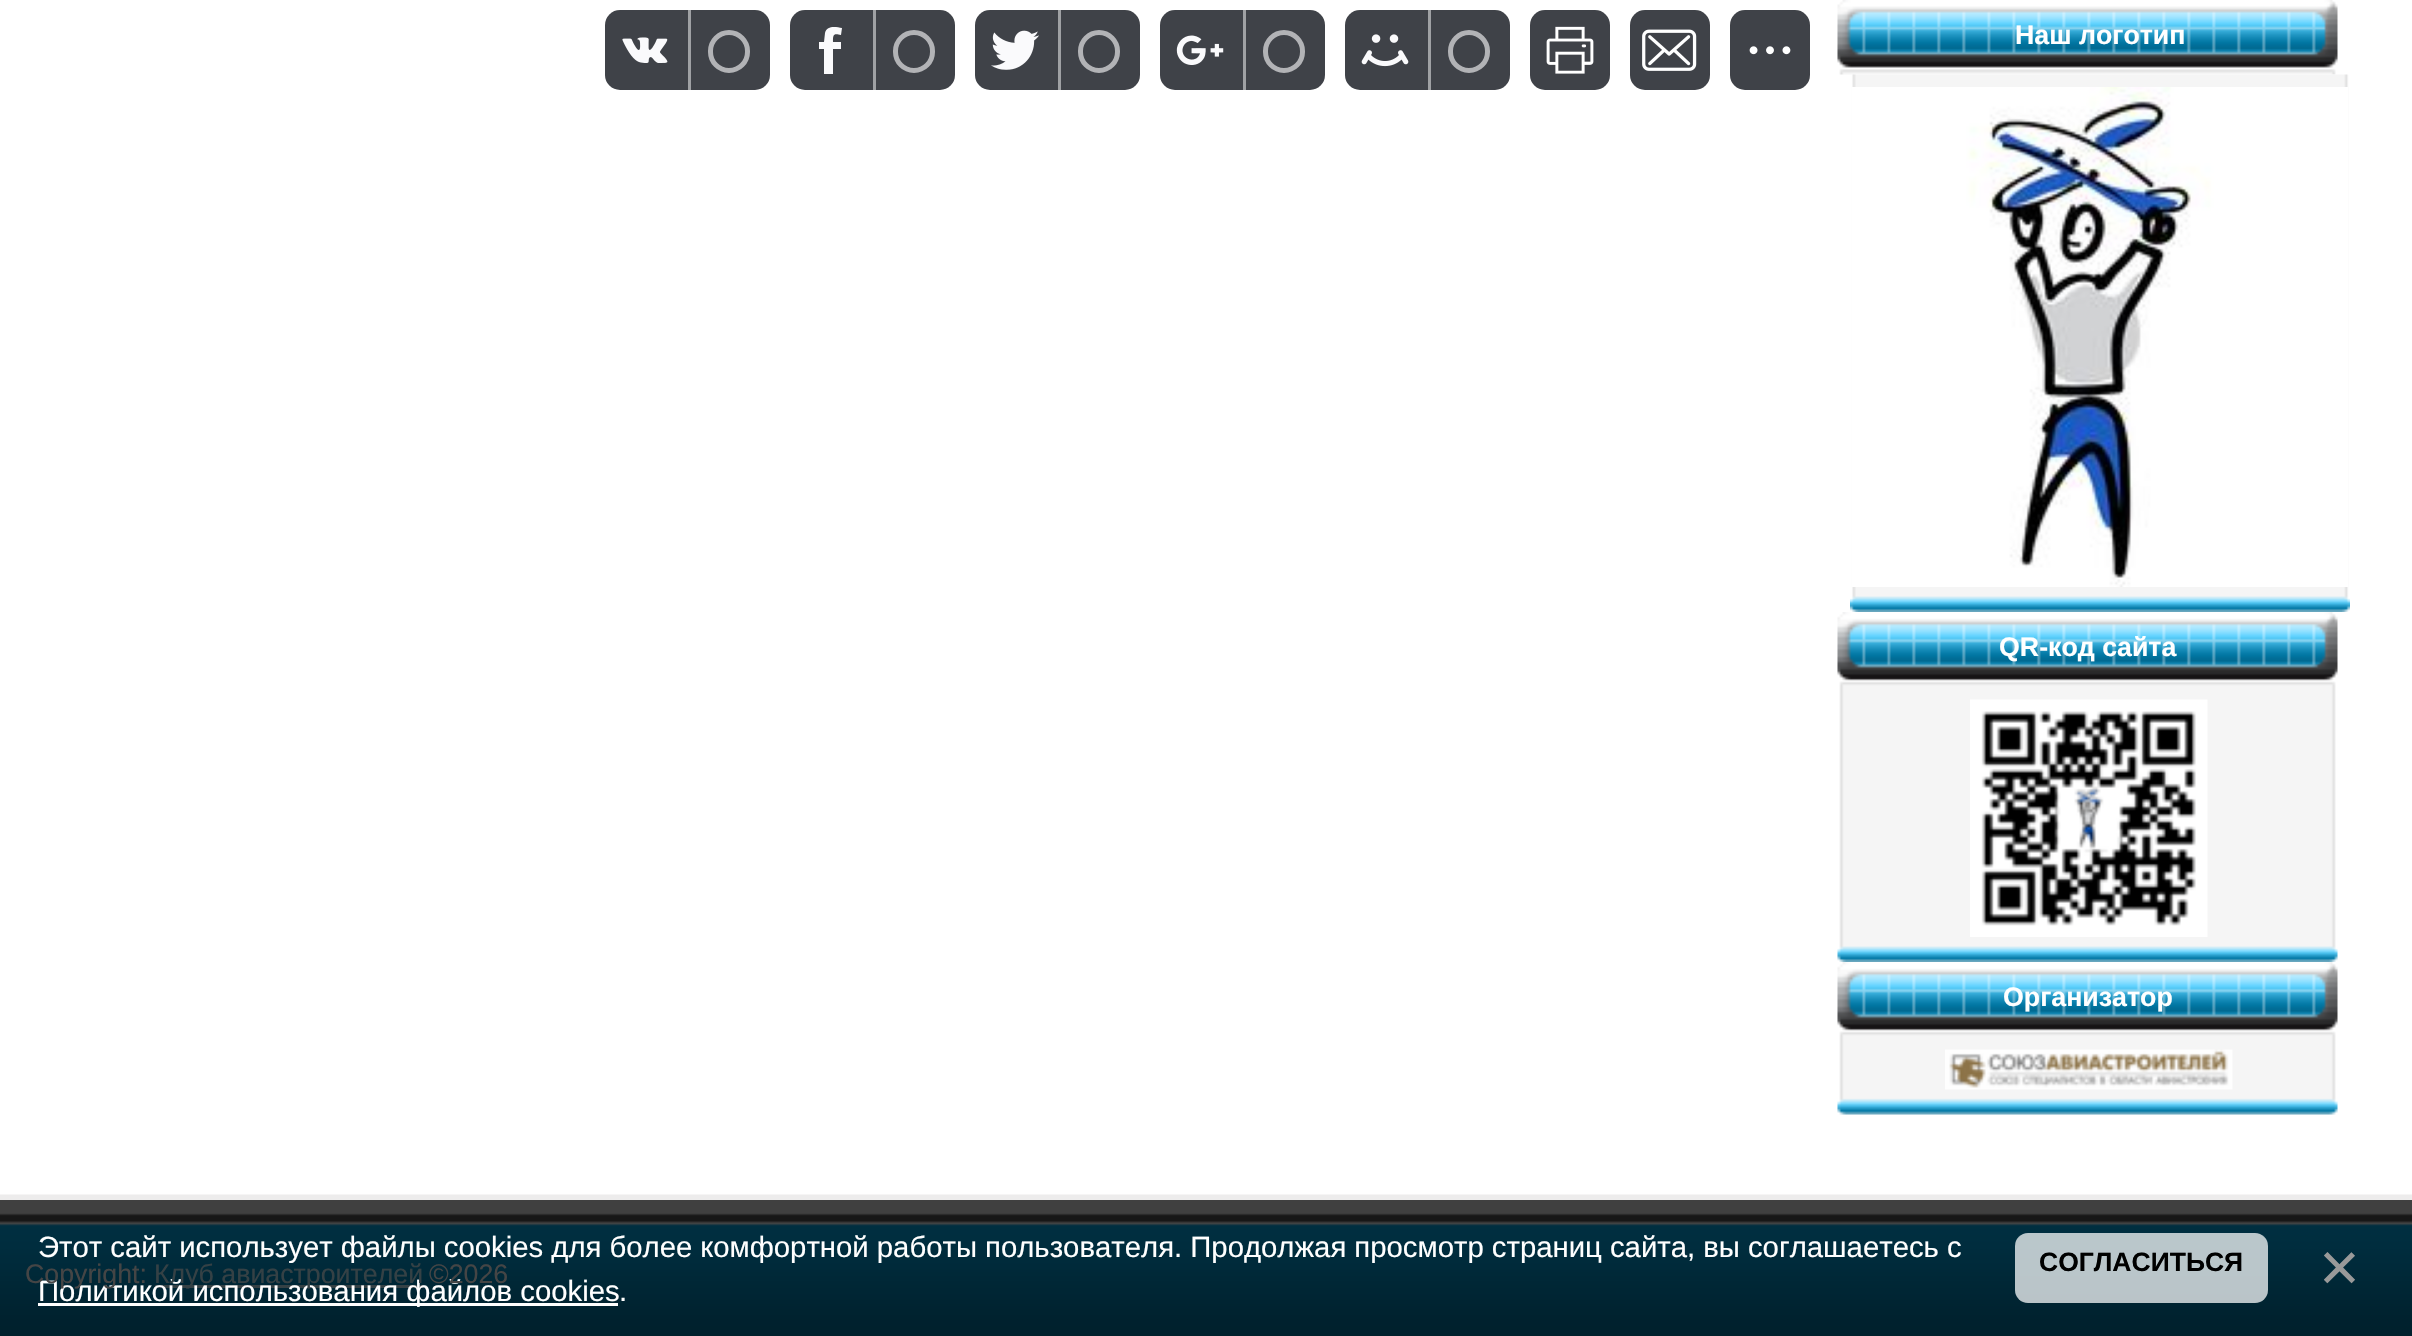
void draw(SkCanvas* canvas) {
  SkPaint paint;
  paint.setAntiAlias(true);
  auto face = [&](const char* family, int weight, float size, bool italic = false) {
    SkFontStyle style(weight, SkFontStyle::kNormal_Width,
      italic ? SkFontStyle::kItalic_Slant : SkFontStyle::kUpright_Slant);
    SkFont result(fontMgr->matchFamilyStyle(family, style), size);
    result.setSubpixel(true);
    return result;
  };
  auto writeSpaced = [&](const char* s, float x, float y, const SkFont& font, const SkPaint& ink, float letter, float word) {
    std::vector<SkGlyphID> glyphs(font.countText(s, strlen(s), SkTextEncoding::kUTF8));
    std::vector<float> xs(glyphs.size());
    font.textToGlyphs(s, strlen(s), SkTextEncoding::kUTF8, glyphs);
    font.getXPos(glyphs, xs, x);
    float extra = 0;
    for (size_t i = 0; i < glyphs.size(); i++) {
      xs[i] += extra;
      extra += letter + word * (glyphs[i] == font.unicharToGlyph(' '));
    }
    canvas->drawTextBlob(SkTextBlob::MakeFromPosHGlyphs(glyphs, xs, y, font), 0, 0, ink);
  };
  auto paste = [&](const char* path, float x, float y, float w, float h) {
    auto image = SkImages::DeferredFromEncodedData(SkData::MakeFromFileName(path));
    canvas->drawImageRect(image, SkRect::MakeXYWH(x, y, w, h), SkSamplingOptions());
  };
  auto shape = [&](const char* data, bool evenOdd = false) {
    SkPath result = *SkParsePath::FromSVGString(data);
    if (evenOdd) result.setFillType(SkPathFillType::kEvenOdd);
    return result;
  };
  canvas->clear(0xffffffff);
  paint.setColor(0xff3f4248);
  canvas->drawRoundRect(SkRect::MakeXYWH(605, 10, 165, 80), 15, 15, paint);
  paste("img/1.png", 622, 37, 46, 26);
  paint.setColor(0xff9fa1a4);
  canvas->drawRect(SkRect::MakeXYWH(688, 10, 3, 80), paint);
  paint.setStroke(true);
  paint.setStrokeWidth(5);
  paint.setColor(0xffb2b3b6);
  canvas->drawRoundRect(SkRect::MakeXYWH(710.5f, 32.5f, 37, 38), 18.5f, 18.5f, paint);
  paint.setStroke(false);
  paint.setColor(0xff3f4248);
  canvas->drawRoundRect(SkRect::MakeXYWH(790, 10, 165, 80), 15, 15, paint);
  paint.setColor(0xfffafafc);
  canvas->drawPath(shape("M819 42H824L825 33C827 25 836 27 842 28L841 35C833 33 833 35 833 42H841V49H833V74H824V49H819Z"), paint);
  paint.setColor(0xff9fa1a4);
  canvas->drawRect(SkRect::MakeXYWH(873, 10, 3, 80), paint);
  paint.setStroke(true);
  paint.setColor(0xffb2b3b6);
  canvas->drawRoundRect(SkRect::MakeXYWH(895.5f, 32.5f, 37, 38), 18.5f, 18.5f, paint);
  paint.setStroke(false);
  paint.setColor(0xff3f4248);
  canvas->drawRoundRect(SkRect::MakeXYWH(975, 10, 165, 80), 15, 15, paint);
  paste("img/2.png", 991, 30, 48, 40);
  paint.setColor(0xff9fa1a4);
  canvas->drawRect(SkRect::MakeXYWH(1058, 10, 3, 80), paint);
  paint.setStroke(true);
  paint.setColor(0xffb2b3b6);
  canvas->drawRoundRect(SkRect::MakeXYWH(1080.5f, 32.5f, 37, 38), 18.5f, 18.5f, paint);
  paint.setStroke(false);
  paint.setColor(0xff3f4248);
  canvas->drawRoundRect(SkRect::MakeXYWH(1160, 10, 165, 80), 15, 15, paint);
  paste("img/3.png", 1176, 35, 48, 30);
  paint.setColor(0xff9fa1a4);
  canvas->drawRect(SkRect::MakeXYWH(1243, 10, 3, 80), paint);
  paint.setStroke(true);
  paint.setColor(0xffb2b3b6);
  canvas->drawRoundRect(SkRect::MakeXYWH(1265.5f, 32.5f, 37, 38), 18.5f, 18.5f, paint);
  paint.setStroke(false);
  paint.setColor(0xff3f4248);
  canvas->drawRoundRect(SkRect::MakeXYWH(1345, 10, 165, 80), 15, 15, paint);
  paste("img/4.png", 1361, 34, 48, 33);
  paint.setColor(0xff9fa1a4);
  canvas->drawRect(SkRect::MakeXYWH(1428, 10, 3, 80), paint);
  paint.setStroke(true);
  paint.setColor(0xffb2b3b6);
  canvas->drawRoundRect(SkRect::MakeXYWH(1450.5f, 32.5f, 37, 38), 18.5f, 18.5f, paint);
  paint.setStroke(false);
  paint.setColor(0xff3f4248);
  canvas->drawRoundRect(SkRect::MakeXYWH(1530, 10, 80, 80), 15, 15, paint);
  paste("img/5.png", 1546, 26, 48, 48);
  canvas->drawRoundRect(SkRect::MakeXYWH(1630, 10, 80, 80), 15, 15, paint);
  paste("img/6.png", 1642, 29, 55, 42);
  canvas->drawRoundRect(SkRect::MakeXYWH(1730, 10, 80, 80), 15, 15, paint);
  paste("img/7.png", 1749, 46, 42, 9);
  paste("img/8.png", 1837, 0, 501, 75);
  paste("img/9.png", 1850, 74, 500, 538);
  paste("img/10.png", 1852, 87, 496, 500);
  paste("img/11.png", 1837, 612, 501, 75);
  paste("img/12.png", 1837, 687, 501, 275);
  paste("img/13.png", 1970, 699, 238, 238);
  paste("img/11.png", 1837, 962, 501, 75);
  paste("img/14.png", 1837, 1037, 501, 78);
  paste("img/15.png", 1945, 1049, 288, 41);
  paste("img/16.png", 0, 1194, 2412, 142);
  paint.setColor(0xffffffff);
  canvas->drawRect(SkRect::MakeXYWH(38, 1303, 580, 3), paint);
  paint.setColor(0xbaffffff);
  canvas->drawRoundRect(SkRect::MakeXYWH(2015, 1233, 253, 70), 13, 13, paint);
  paint.setColor(0xff354145);
  canvas->drawRect(SkRect::MakeXYWH(155, 1285, 268, 3), paint);
  auto f0 = face("Liberation Sans", 700, 26.75f);
  paint.setColor(0xffffffff);
  {
    const struct { const char* s; float x, y; } items[] = {
      {"Наш логотип", 2015, 44},
      {"QR-код сайта", 1999, 656},
      {"Организатор", 2003, 1006},
    };
    for (auto [s, x, y] : items) {
      canvas->drawString(s, x, y, f0, paint);
    }
  }
  auto f1 = face("Liberation Sans", 400, 29.33f);
  writeSpaced("Этот сайт использует файлы cookies для более комфортной работы пользователя. Продолжая просмотр страниц сайта, вы соглашаетесь с", 38, 1257, f1, paint, 0, -0.1f);
  canvas->drawString("Политикой использования файлов cookies", 38, 1301, f1, paint);
  canvas->drawString(".", 619, 1301, f1, paint);
  auto f2 = face("Liberation Sans", 700, 26.5f);
  paint.setColor(0xff000000);
  canvas->drawString("СОГЛАСИТЬСЯ", 2039, 1271, f2, paint);
  auto f3 = face("Liberation Sans", 400, 70);
  paint.setColor(0xff999999);
  canvas->drawString("×", 2319, 1291, f3, paint);
  auto f4 = face("Liberation Sans", 400, 26.75f);
  paint.setColor(0xff454545);
  canvas->drawString("Copyright:", 25, 1283, f4, paint);
  paint.setColor(0xff354145);
  canvas->drawString("Клуб авиастроителей", 154, 1283, f4, paint);
  paint.setColor(0xff454545);
  canvas->drawString("©2026", 429, 1283, f4, paint);
}
